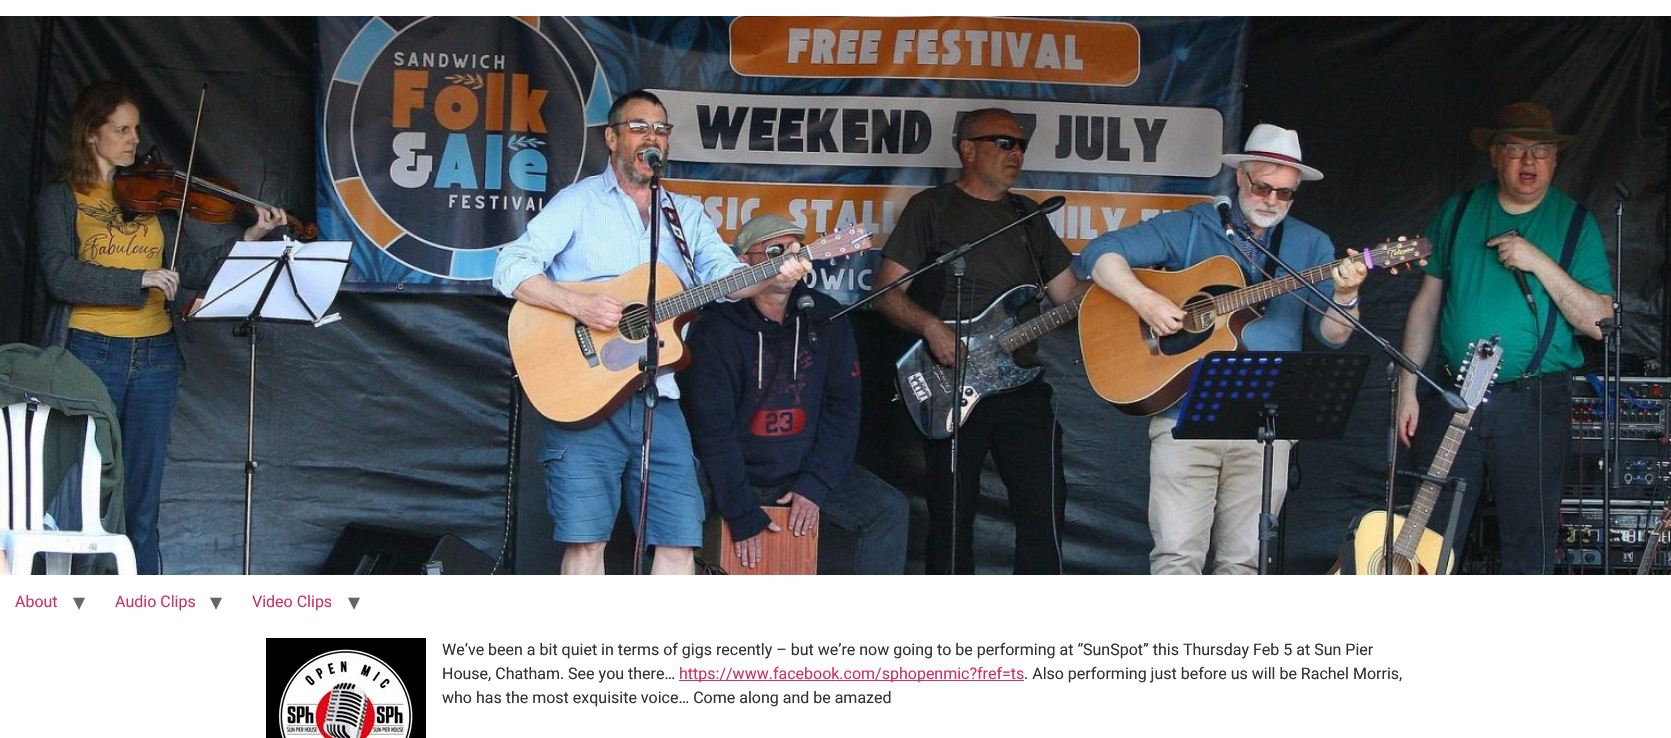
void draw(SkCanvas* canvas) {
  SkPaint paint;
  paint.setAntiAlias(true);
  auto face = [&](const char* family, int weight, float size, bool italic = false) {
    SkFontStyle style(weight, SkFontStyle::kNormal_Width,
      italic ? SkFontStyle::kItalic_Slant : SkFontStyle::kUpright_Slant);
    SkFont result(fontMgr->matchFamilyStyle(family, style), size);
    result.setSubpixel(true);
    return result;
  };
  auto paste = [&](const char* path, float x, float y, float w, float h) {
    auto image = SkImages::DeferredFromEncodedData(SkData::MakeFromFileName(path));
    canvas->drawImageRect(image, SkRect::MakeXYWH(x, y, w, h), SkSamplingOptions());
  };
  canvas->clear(0xffffffff);
  paste("img/1.png", 0, 16, 1671, 559);
  paste("img/2.png", 266, 638, 160, 100);
  paint.setColor(0xffcc3366);
  canvas->drawRect(SkRect::MakeXYWH(679, 680, 345, 1), paint);
  auto f0 = face("Roboto", 400, 16);
  canvas->drawString("About", 15, 607, f0, paint);
  auto f1 = face("DejaVu Sans", 400, 24);
  paint.setColor(0xff666666);
  canvas->drawString("▾", 73, 610, f1, paint);
  paint.setColor(0xffcc3366);
  canvas->drawString("Audio Clips", 115, 607, f0, paint);
  paint.setColor(0xff666666);
  canvas->drawString("▾", 210, 610, f1, paint);
  paint.setColor(0xffcc3366);
  canvas->drawString("Video Clips", 252, 607, f0, paint);
  paint.setColor(0xff666666);
  canvas->drawString("▾", 348, 610, f1, paint);
  paint.setColor(0xff333333);
  canvas->drawString("We’ve been a bit quiet in terms of gigs recently – but we’re now going to be performing at “SunSpot” this Thursday Feb 5 at Sun Pier", 442, 655, f0, paint);
  canvas->drawString("House, Chatham. See you there…", 442, 679, f0, paint);
  paint.setColor(0xffcc3366);
  canvas->drawString("https://www.facebook.com/sphopenmic?fref=ts", 679, 679, f0, paint);
  paint.setColor(0xff333333);
  canvas->drawString(". Also performing just before us will be Rachel Morris,", 1024, 679, f0, paint);
  canvas->drawString("who has the most exquisite voice… Come along and be amazed", 442, 703, f0, paint);
}
